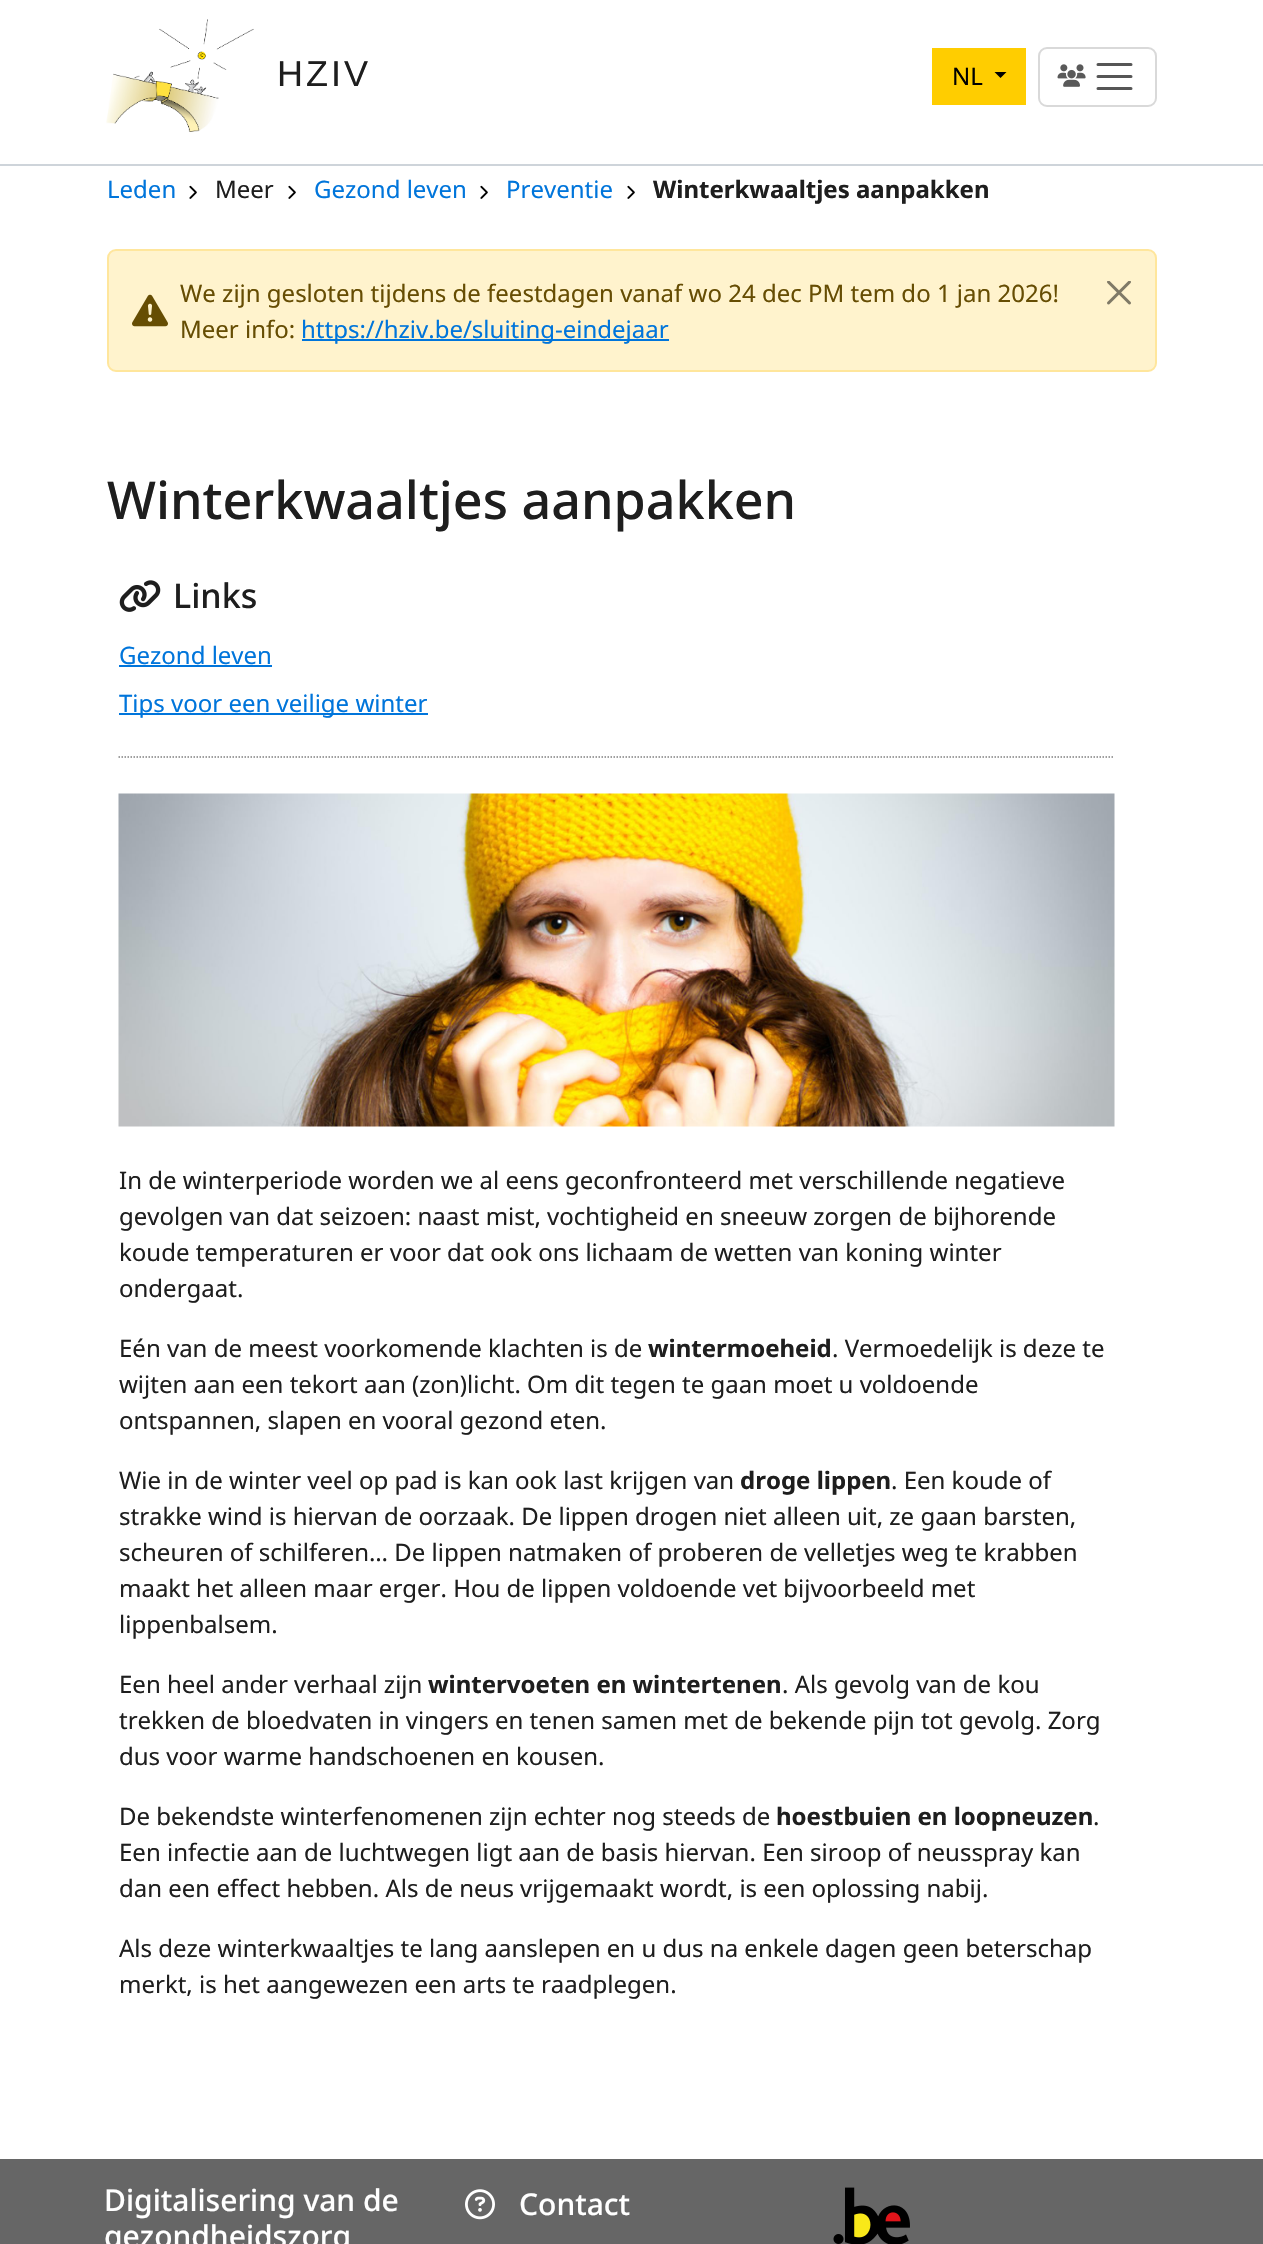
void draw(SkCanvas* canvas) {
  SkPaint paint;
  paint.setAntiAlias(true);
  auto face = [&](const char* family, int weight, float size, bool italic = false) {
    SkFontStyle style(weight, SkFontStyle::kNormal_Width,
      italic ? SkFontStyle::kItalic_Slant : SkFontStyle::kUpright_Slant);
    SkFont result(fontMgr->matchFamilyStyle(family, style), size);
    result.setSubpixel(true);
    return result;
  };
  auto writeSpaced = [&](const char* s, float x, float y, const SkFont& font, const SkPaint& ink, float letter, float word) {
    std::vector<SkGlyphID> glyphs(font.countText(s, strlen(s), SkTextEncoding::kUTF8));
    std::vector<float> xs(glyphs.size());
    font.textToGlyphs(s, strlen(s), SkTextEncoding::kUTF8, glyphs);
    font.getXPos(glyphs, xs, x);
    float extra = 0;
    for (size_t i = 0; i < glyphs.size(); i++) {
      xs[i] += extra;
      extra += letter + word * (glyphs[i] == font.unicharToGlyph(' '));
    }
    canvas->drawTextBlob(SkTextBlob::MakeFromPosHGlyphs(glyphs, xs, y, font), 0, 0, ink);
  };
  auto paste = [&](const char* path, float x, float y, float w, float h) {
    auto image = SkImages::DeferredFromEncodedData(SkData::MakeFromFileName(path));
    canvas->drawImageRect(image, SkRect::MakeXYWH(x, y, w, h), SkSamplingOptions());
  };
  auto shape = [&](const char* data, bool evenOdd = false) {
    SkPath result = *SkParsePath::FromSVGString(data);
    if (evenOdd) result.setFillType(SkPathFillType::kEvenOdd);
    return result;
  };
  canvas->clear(0xffffffff);
  paint.setColor(0xffced4da);
  canvas->drawRect(SkRect::MakeXYWH(0, 164, 1263, 2), paint);
  paste("img/1.png", 106, 19, 148, 113);
  paint.setColor(0xffffcd00);
  canvas->drawRect(SkRect::MakeXYWH(932, 48, 94, 57), paint);
  paint.setColor(0xff000000);
  canvas->drawPath(shape("M994.5 72H1006.5L1000.5 78Z"), paint);
  paint.setStroke(true);
  paint.setStrokeWidth(2);
  paint.setColor(0xffd9d9d9);
  canvas->drawRoundRect(SkRect::MakeXYWH(1039, 48, 117, 58), 8, 8, paint);
  paste("img/2.png", 1057, 64, 29, 23);
  paint.setStrokeWidth(3);
  paint.setStrokeCap(SkPaint::kRound_Cap);
  paint.setColor(0xff565656);
  canvas->drawPath(shape("M1098 64.5H1131M1098 76.5H1131M1098 88.5H1131"), paint);
  paste("img/3.png", 189, 185, 8, 14);
  paste("img/3.png", 288, 185, 8, 14);
  paste("img/3.png", 480, 185, 8, 14);
  paste("img/3.png", 627, 185, 8, 14);
  paint.setStroke(false);
  paint.setColor(0xfffff3cd);
  canvas->drawRoundRect(SkRect::MakeXYWH(108, 250, 1048, 121), 8, 8, paint);
  paint.setStroke(true);
  paint.setStrokeWidth(2);
  paint.setStrokeCap(SkPaint::kButt_Cap);
  paint.setColor(0xffffe69c);
  canvas->drawRoundRect(SkRect::MakeXYWH(108, 250, 1048, 121), 8, 8, paint);
  paste("img/4.png", 132, 294, 36, 33);
  paint.setStroke(false);
  paint.setColor(0xff0075db);
  canvas->drawRect(SkRect::MakeXYWH(302, 339, 367, 2), paint);
  paste("img/5.png", 1107, 281, 24, 24);
  paint.setStroke(true);
  paint.setStrokeWidth(1.5f);
  paint.setColor(0xff808080);
  paint.setPathEffect(SkDashPathEffect::Make({{1.5f, 1.5f}}, 0));
  canvas->drawPath(shape("M118.5 757H1114.5"), paint);
  paint.setPathEffect(nullptr);
  paste("img/6.png", 119, 580, 42, 32);
  paint.setStroke(false);
  paint.setColor(0xff0075db);
  canvas->drawRect(SkRect::MakeXYWH(119, 665, 153, 2), paint);
  canvas->drawRect(SkRect::MakeXYWH(119, 713, 309, 2), paint);
  paste("img/7.png", 118, 793, 997, 334);
  paint.setColor(0xff666666);
  canvas->drawRect(SkRect::MakeXYWH(0, 2159, 1263, 85), paint);
  paste("img/8.png", 465, 2189, 30, 31);
  paste("img/9.png", 833, 2187, 77, 57);
  auto f0 = face("Liberation Sans", 400, 36);
  paint.setColor(0xff1e1e1e);
  writeSpaced("HZIV", 277, 86, f0, paint, 3, 0);
  auto f1 = face("Noto Sans", 400, 24);
  paint.setColor(0xff000000);
  canvas->drawString("NL", 952, 85, f1, paint);
  paint.setColor(0xff0075db);
  canvas->drawString("Leden", 107, 198, f1, paint);
  paint.setColor(0xff1e1e1e);
  canvas->drawString("Meer", 215, 198, f1, paint);
  paint.setColor(0xff0075db);
  canvas->drawString("Gezond leven", 314, 198, f1, paint);
  canvas->drawString("Preventie", 506, 198, f1, paint);
  auto f2 = face("Noto Sans", 700, 24);
  paint.setColor(0xff1e1e1e);
  canvas->drawString("Winterkwaaltjes aanpakken", 653, 198, f2, paint);
  paint.setColor(0xff664d03);
  canvas->drawString("We zijn gesloten tijdens de feestdagen vanaf wo 24 dec PM tem do 1 jan 2026!", 180, 302, f1, paint);
  canvas->drawString("Meer info:", 180, 338, f1, paint);
  paint.setColor(0xff0075db);
  canvas->drawString("https://hziv.be/sluiting-eindejaar", 301, 338, f1, paint);
  auto f3 = face("Noto Sans", 500, 52);
  paint.setColor(0xff1e1e1e);
  canvas->drawString("Winterkwaaltjes aanpakken", 107, 519, f3, paint);
  auto f4 = face("Noto Sans", 500, 34);
  canvas->drawString("Links", 173, 608, f4, paint);
  paint.setColor(0xff0075db);
  canvas->drawString("Gezond leven", 119, 664, f1, paint);
  canvas->drawString("Tips voor een veilige winter", 119, 712, f1, paint);
  paint.setColor(0xff1e1e1e);
  {
    const struct { const char* s; float x, y; } items[] = {
      {"In de winterperiode worden we al eens geconfronteerd met verschillende negatieve", 119, 1189},
      {"gevolgen van dat seizoen: naast mist, vochtigheid en sneeuw zorgen de bijhorende", 119, 1225},
      {"koude temperaturen er voor dat ook ons lichaam de wetten van koning winter", 119, 1261},
      {"ondergaat.", 119, 1297},
      {"Eén van de meest voorkomende klachten is de", 119, 1357},
    };
    for (auto [s, x, y] : items) {
      canvas->drawString(s, x, y, f1, paint);
    }
  }
  canvas->drawString("wintermoeheid", 648, 1357, f2, paint);
  {
    const struct { const char* s; float x, y; } items[] = {
      {". Vermoedelijk is deze te", 832, 1357},
      {"wijten aan een tekort aan (zon)licht. Om dit tegen te gaan moet u voldoende", 119, 1393},
      {"ontspannen, slapen en vooral gezond eten.", 119, 1429},
      {"Wie in de winter veel op pad is kan ook last krijgen van", 119, 1489},
    };
    for (auto [s, x, y] : items) {
      canvas->drawString(s, x, y, f1, paint);
    }
  }
  canvas->drawString("droge lippen", 740, 1489, f2, paint);
  {
    const struct { const char* s; float x, y; } items[] = {
      {". Een koude of", 891, 1489},
      {"strakke wind is hiervan de oorzaak. De lippen drogen niet alleen uit, ze gaan barsten,", 119, 1525},
      {"scheuren of schilferen… De lippen natmaken of proberen de velletjes weg te krabben", 119, 1561},
      {"maakt het alleen maar erger. Hou de lippen voldoende vet bijvoorbeeld met", 119, 1597},
      {"lippenbalsem.", 119, 1633},
      {"Een heel ander verhaal zijn", 119, 1693},
    };
    for (auto [s, x, y] : items) {
      canvas->drawString(s, x, y, f1, paint);
    }
  }
  canvas->drawString("wintervoeten en wintertenen", 428, 1693, f2, paint);
  {
    const struct { const char* s; float x, y; } items[] = {
      {". Als gevolg van de kou", 782, 1693},
      {"trekken de bloedvaten in vingers en tenen samen met de bekende pijn tot gevolg. Zorg", 119, 1729},
      {"dus voor warme handschoenen en kousen.", 119, 1765},
      {"De bekendste winterfenomenen zijn echter nog steeds de", 119, 1825},
    };
    for (auto [s, x, y] : items) {
      canvas->drawString(s, x, y, f1, paint);
    }
  }
  canvas->drawString("hoestbuien en loopneuzen", 776, 1825, f2, paint);
  {
    const struct { const char* s; float x, y; } items[] = {
      {".", 1093, 1825},
      {"Een infectie aan de luchtwegen ligt aan de basis hiervan. Een siroop of neusspray kan", 119, 1861},
      {"dan een effect hebben. Als de neus vrijgemaakt wordt, is een oplossing nabij.", 119, 1897},
      {"Als deze winterkwaaltjes te lang aanslepen en u dus na enkele dagen geen beterschap", 119, 1957},
      {"merkt, is het aangewezen een arts te raadplegen.", 119, 1993},
    };
    for (auto [s, x, y] : items) {
      canvas->drawString(s, x, y, f1, paint);
    }
  }
  auto f5 = face("Noto Sans", 500, 30);
  paint.setColor(0xffffffff);
  {
    const struct { const char* s; float x, y; } items[] = {
      {"Digitalisering van de", 104, 2211},
      {"gezondheidszorg", 104, 2247},
      {"Contact", 519, 2215},
    };
    for (auto [s, x, y] : items) {
      canvas->drawString(s, x, y, f5, paint);
    }
  }
}
